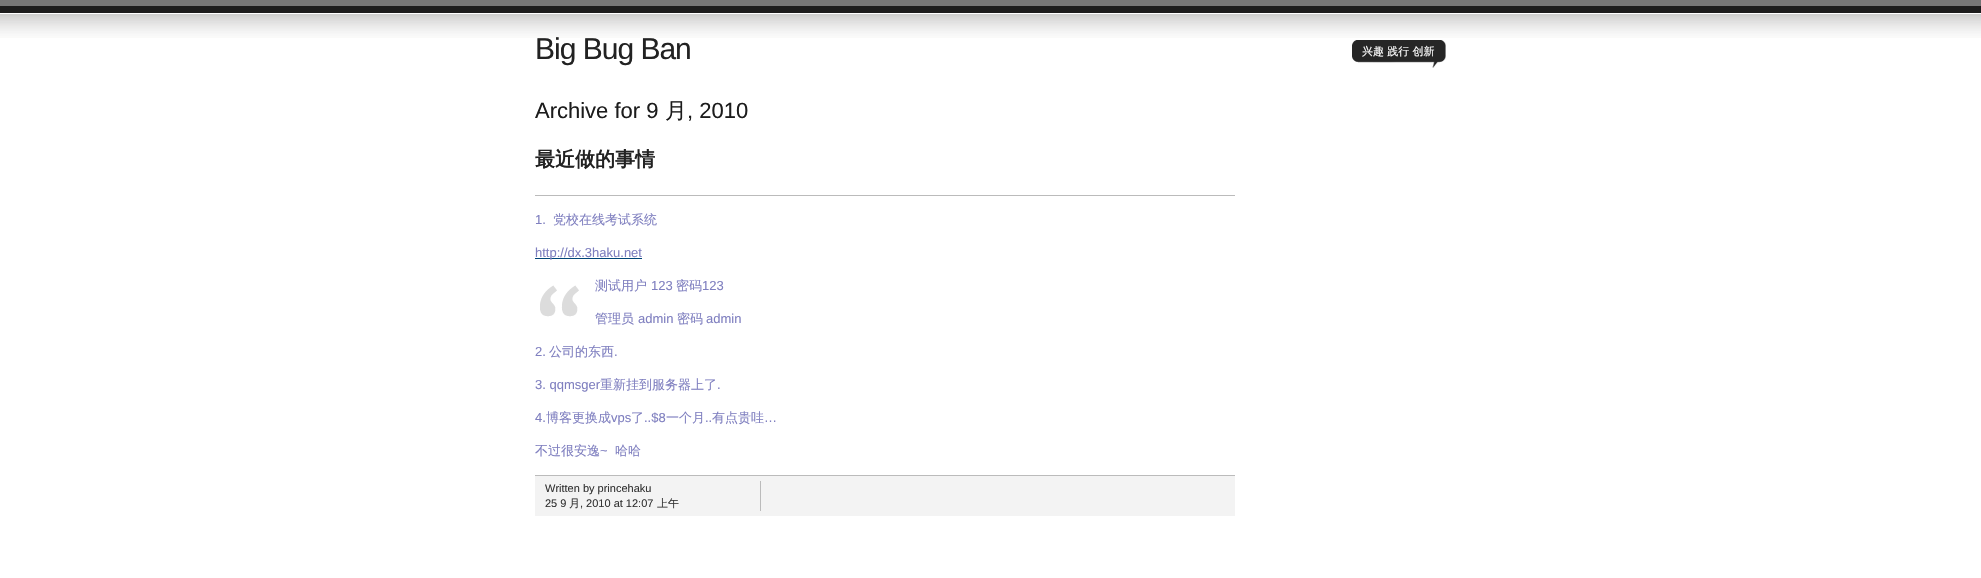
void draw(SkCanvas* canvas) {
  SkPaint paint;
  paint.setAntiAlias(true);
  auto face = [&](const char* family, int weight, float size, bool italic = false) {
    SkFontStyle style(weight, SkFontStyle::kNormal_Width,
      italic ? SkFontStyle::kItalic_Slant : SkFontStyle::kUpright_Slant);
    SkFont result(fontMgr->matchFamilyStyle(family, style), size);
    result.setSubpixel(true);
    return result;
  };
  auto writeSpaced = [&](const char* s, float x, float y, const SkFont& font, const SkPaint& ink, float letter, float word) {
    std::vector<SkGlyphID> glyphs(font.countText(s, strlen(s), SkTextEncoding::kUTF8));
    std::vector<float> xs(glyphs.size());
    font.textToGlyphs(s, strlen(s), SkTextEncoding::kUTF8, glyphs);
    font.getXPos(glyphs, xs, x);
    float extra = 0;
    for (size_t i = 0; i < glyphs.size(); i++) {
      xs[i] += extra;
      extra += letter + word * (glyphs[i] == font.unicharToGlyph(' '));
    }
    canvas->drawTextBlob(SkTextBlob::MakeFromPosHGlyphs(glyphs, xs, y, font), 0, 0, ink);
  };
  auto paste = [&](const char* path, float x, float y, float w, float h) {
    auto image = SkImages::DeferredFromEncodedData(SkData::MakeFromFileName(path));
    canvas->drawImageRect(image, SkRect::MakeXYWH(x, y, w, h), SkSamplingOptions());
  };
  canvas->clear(0xffffffff);
  paste("img/1.png", 0, 0, 1981, 38);
  paste("img/2.png", 1352, 40, 94, 28);
  paste("img/3.png", 1352, 40, 6, 23);
  paint.setColor(0xffbbbbbb);
  canvas->drawRect(SkRect::MakeXYWH(535, 195, 700, 1), paint);
  paint.setColor(0xff004477);
  canvas->drawRect(SkRect::MakeXYWH(535, 258, 107, 1), paint);
  paste("img/4.png", 540, 285, 39, 32);
  {
    const struct { float x, y, w, h; SkColor color; } items[] = {
      {535, 476, 700, 40, 0xfff3f3f3},
      {535, 475, 700, 1, 0xffbbbbbb},
      {760, 481, 1, 30, 0xffbbbbbb},
    };
    for (auto [x, y, w, h, color] : items) {
      paint.setColor(color);
      canvas->drawRect(SkRect::MakeXYWH(x, y, w, h), paint);
    }
  }
  auto f0 = face("Liberation Sans", 400, 30);
  paint.setColor(0xff222222);
  writeSpaced("Big Bug Ban", 535, 59, f0, paint, -1, 0);
  auto f1 = face("WenQuanYi Zen Hei", 500, 11);
  paint.setColor(0xffffffff);
  canvas->drawString("兴趣 践行 创新", 1362, 55, f1, paint);
  auto f2 = face("Liberation Sans", 400, 22);
  paint.setColor(0xff1c1c1c);
  canvas->drawString("Archive for 9", 535, 118, f2, paint);
  auto f3 = face("WenQuanYi Zen Hei", 500, 22);
  canvas->drawString("月", 665, 118, f3, paint);
  canvas->drawString(", 2010", 687, 118, f2, paint);
  auto f4 = face("WenQuanYi Zen Hei", 700, 20);
  paint.setColor(0xff222222);
  canvas->drawString("最近做的事情", 535, 166, f4, paint);
  auto f5 = face("Liberation Sans", 400, 13);
  paint.setColor(0xff8080c0);
  canvas->drawString("1.", 535, 224, f5, paint);
  auto f6 = face("WenQuanYi Zen Hei", 500, 13);
  canvas->drawString("党校在线考试系统", 553, 224, f6, paint);
  canvas->drawString("http://dx.3haku.net", 535, 257, f5, paint);
  canvas->drawString("测试用户", 595, 290, f6, paint);
  canvas->drawString("123", 651, 290, f5, paint);
  canvas->drawString("密码", 676, 290, f6, paint);
  canvas->drawString("123", 702, 290, f5, paint);
  canvas->drawString("管理员", 595, 323, f6, paint);
  canvas->drawString("admin", 638, 323, f5, paint);
  canvas->drawString("密码", 677, 323, f6, paint);
  canvas->drawString("admin", 706, 323, f5, paint);
  canvas->drawString("2.", 535, 356, f5, paint);
  canvas->drawString("公司的东西", 549, 356, f6, paint);
  canvas->drawString(".", 614, 356, f5, paint);
  canvas->drawString("3. qqmsger", 535, 389, f5, paint);
  canvas->drawString("重新挂到服务器上了", 600, 389, f6, paint);
  canvas->drawString(".", 717, 389, f5, paint);
  canvas->drawString("4.", 535, 422, f5, paint);
  canvas->drawString("博客更换成", 546, 422, f6, paint);
  canvas->drawString("vps", 611, 422, f5, paint);
  canvas->drawString("了", 631, 422, f6, paint);
  canvas->drawString("..$8", 644, 422, f5, paint);
  canvas->drawString("一个月", 666, 422, f6, paint);
  canvas->drawString("..", 705, 422, f5, paint);
  canvas->drawString("有点贵哇", 712, 422, f6, paint);
  canvas->drawString("…", 764, 422, f5, paint);
  canvas->drawString("不过很安逸", 535, 455, f6, paint);
  canvas->drawString("~", 600, 455, f5, paint);
  canvas->drawString("哈哈", 615, 455, f6, paint);
  auto f7 = face("Liberation Sans", 400, 11);
  paint.setColor(0xff333333);
  canvas->drawString("Written by princehaku", 545, 492, f7, paint);
  canvas->drawString("25 9", 545, 507, f7, paint);
  canvas->drawString("月", 569, 507, f1, paint);
  canvas->drawString(", 2010 at 12:07", 580, 507, f7, paint);
  canvas->drawString("上午", 657, 507, f1, paint);
}
